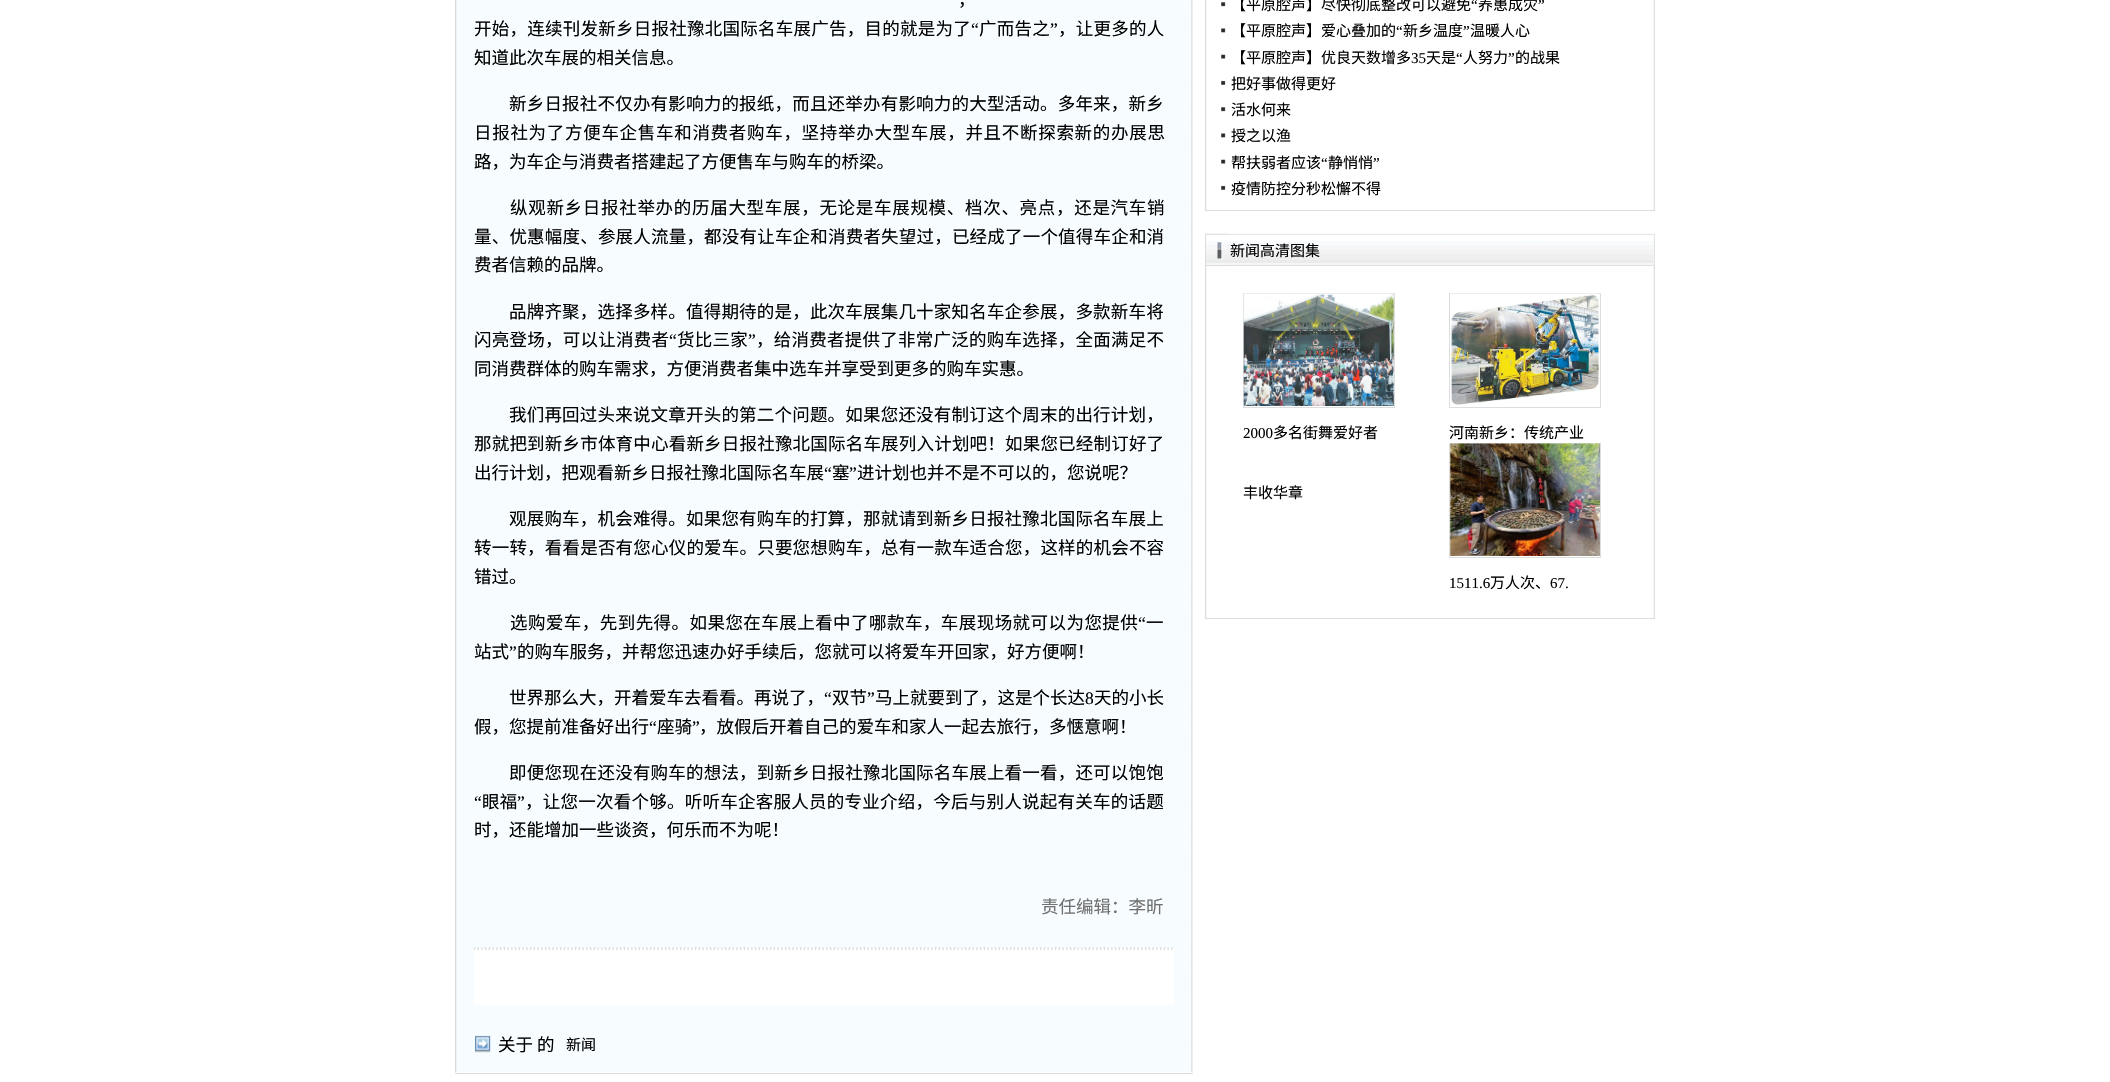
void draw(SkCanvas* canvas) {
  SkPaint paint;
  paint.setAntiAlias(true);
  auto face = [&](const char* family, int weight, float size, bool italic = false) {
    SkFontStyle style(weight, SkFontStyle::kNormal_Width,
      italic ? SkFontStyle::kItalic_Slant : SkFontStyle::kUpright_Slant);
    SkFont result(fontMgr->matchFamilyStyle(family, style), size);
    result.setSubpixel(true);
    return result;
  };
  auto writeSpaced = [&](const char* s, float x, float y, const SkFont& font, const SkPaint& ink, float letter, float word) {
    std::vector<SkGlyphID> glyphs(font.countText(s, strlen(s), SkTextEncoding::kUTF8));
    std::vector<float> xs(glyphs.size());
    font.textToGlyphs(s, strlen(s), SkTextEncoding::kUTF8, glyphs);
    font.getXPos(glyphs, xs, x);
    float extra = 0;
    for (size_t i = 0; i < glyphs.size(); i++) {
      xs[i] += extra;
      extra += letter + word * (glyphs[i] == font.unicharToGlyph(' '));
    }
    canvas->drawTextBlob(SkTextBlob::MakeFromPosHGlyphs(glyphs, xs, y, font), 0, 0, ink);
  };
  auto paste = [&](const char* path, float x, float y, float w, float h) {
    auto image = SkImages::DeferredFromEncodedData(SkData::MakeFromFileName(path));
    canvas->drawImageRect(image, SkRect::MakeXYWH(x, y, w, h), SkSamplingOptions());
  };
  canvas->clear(0xffffffff);
  paste("img/1.png", 455, 0, 738, 1073);
  paint.setColor(0xffffffff);
  canvas->drawRect(SkRect::MakeXYWH(474, 948, 700, 57), paint);
  paste("img/2.png", 474, 947, 699, 2);
  paste("img/3.png", 474, 948, 699, 2);
  paste("img/4.png", 475, 1035, 16, 18);
  paint.setColor(0xffdcdddd);
  canvas->drawRect(SkRect::MakeXYWH(455, 1073, 738, 1), paint);
  paste("img/5.png", 1205, 0, 450, 210);
  canvas->drawRect(SkRect::MakeXYWH(1205, 210, 450, 1), paint);
  paste("img/6.png", 1221, 2, 5, 5);
  paste("img/7.png", 1221, 28, 5, 5);
  paste("img/8.png", 1221, 54, 5, 5);
  paste("img/9.png", 1221, 80, 5, 5);
  paste("img/6.png", 1221, 107, 5, 5);
  paste("img/7.png", 1221, 133, 5, 5);
  paste("img/8.png", 1221, 159, 5, 5);
  paste("img/9.png", 1221, 185, 5, 5);
  paste("img/10.png", 1205, 233, 450, 385);
  canvas->drawRect(SkRect::MakeXYWH(1205, 618, 450, 1), paint);
  paste("img/11.png", 1206, 233, 448, 33);
  paste("img/12.png", 1206, 233, 24, 34);
  paint.setStroke(true);
  paint.setStrokeWidth(1);
  canvas->drawRect(SkRect::MakeXYWH(1243.5f, 293.5f, 151, 114), paint);
  paste("img/13.png", 1243, 293, 151, 113);
  canvas->drawRect(SkRect::MakeXYWH(1449.5f, 293.5f, 151, 114), paint);
  paste("img/14.png", 1450, 293, 150, 112);
  canvas->drawRect(SkRect::MakeXYWH(1449.5f, 443.5f, 151, 114), paint);
  paste("img/15.png", 1450, 443, 150, 113);
  auto f0 = face("Noto Sans CJK SC", 400, 17.5f);
  paint.setStroke(false);
  paint.setColor(0xff000000);
  canvas->drawString("，", 958, 6, f0, paint);
  writeSpaced("开始，连续刊发新乡日报社豫北国际名车展广告，目的就是为了", 474, 35, f0, paint, 0.25f, 0);
  auto f1 = face("Liberation Serif", 400, 17.5f);
  writeSpaced("“", 971, 35, f1, paint, 0.25f, 0);
  writeSpaced("广而告之", 979, 35, f0, paint, 0.25f, 0);
  writeSpaced("”", 1050, 35, f1, paint, 0.25f, 0);
  writeSpaced("，让更多的人", 1058, 35, f0, paint, 0.25f, 0);
  canvas->drawString("知道此次车展的相关信息。", 474, 64, f0, paint);
  writeSpaced("新乡日报社不仅办有影响力的报纸，而且还举办有影响力的大型活动。多年来，新乡", 509, 110, f0, paint, 0.2f, 0);
  writeSpaced("日报社为了方便车企售车和消费者购车，坚持举办大型车展，并且不断探索新的办展思", 474, 139, f0, paint, 0.7f, 0);
  canvas->drawString("路，为车企与消费者搭建起了方便售车与购车的桥梁。", 474, 168, f0, paint);
  writeSpaced("纵观新乡日报社举办的历届大型车展，无论是车展规模、档次、亮点，还是汽车销", 510, 214, f0, paint, 0.7f, 0);
  writeSpaced("量、优惠幅度、参展人流量，都没有让车企和消费者失望过，已经成了一个值得车企和消", 474, 243, f0, paint, 0.2f, 0);
  canvas->drawString("费者信赖的品牌。", 474, 271, f0, paint);
  writeSpaced("品牌齐聚，选择多样。值得期待的是，此次车展集几十家知名车企参展，多款新车将", 509, 318, f0, paint, 0.2f, 0);
  writeSpaced("闪亮登场，可以让消费者", 474, 346, f0, paint, 0.25f, 0);
  writeSpaced("“", 669, 346, f1, paint, 0.25f, 0);
  writeSpaced("货比三家", 677, 346, f0, paint, 0.25f, 0);
  writeSpaced("”", 748, 346, f1, paint, 0.25f, 0);
  writeSpaced("，给消费者提供了非常广泛的购车选择，全面满足不", 756, 346, f0, paint, 0.25f, 0);
  canvas->drawString("同消费群体的购车需求，方便消费者集中选车并享受到更多的购车实惠。", 474, 375, f0, paint);
  writeSpaced("我们再回过头来说文章开头的第二个问题。如果您还没有制订这个周末的出行计划，", 509, 421, f0, paint, 0.2f, 0);
  writeSpaced("那就把到新乡市体育中心看新乡日报社豫北国际名车展列入计划吧！如果您已经制订好了", 474, 450, f0, paint, 0.2f, 0);
  canvas->drawString("出行计划，把观看新乡日报社豫北国际名车展", 474, 479, f0, paint);
  canvas->drawString("“", 824, 479, f1, paint);
  canvas->drawString("塞", 832, 479, f0, paint);
  canvas->drawString("”", 849, 479, f1, paint);
  canvas->drawString("进计划也并不是不可以的，您说呢？", 857, 479, f0, paint);
  writeSpaced("观展购车，机会难得。如果您有购车的打算，那就请到新乡日报社豫北国际名车展上", 509, 525, f0, paint, 0.2f, 0);
  writeSpaced("转一转，看看是否有您心仪的爱车。只要您想购车，总有一款车适合您，这样的机会不容", 474, 554, f0, paint, 0.2f, 0);
  canvas->drawString("错过。", 474, 583, f0, paint);
  writeSpaced("选购爱车，先到先得。如果您在车展上看中了哪款车，车展现场就可以为您提供", 510, 629, f0, paint, 0.45f, 0);
  writeSpaced("“", 1138, 629, f1, paint, 0.45f, 0);
  writeSpaced("一", 1146, 629, f0, paint, 0.45f, 0);
  canvas->drawString("站式", 474, 658, f0, paint);
  canvas->drawString("”", 509, 658, f1, paint);
  canvas->drawString("的购车服务，并帮您迅速办好手续后，您就可以将爱车开回家，好方便啊！", 517, 658, f0, paint);
  canvas->drawString("世界那么大，开着爱车去看看。再说了，", 509, 704, f0, paint);
  canvas->drawString("“", 824, 704, f1, paint);
  canvas->drawString("双节", 832, 704, f0, paint);
  canvas->drawString("”", 867, 704, f1, paint);
  canvas->drawString("马上就要到了，这是个长达", 875, 704, f0, paint);
  canvas->drawString("8", 1085, 704, f1, paint);
  canvas->drawString("天的小长", 1094, 704, f0, paint);
  canvas->drawString("假，您提前准备好出行", 474, 733, f0, paint);
  canvas->drawString("“", 649, 733, f1, paint);
  canvas->drawString("座骑", 657, 733, f0, paint);
  canvas->drawString("”", 692, 733, f1, paint);
  canvas->drawString("，放假后开着自己的爱车和家人一起去旅行，多惬意啊！", 699, 733, f0, paint);
  writeSpaced("即便您现在还没有购车的想法，到新乡日报社豫北国际名车展上看一看，还可以饱饱", 509, 779, f0, paint, 0.2f, 0);
  writeSpaced("“", 474, 808, f1, paint, 0.25f, 0);
  writeSpaced("眼福", 482, 808, f0, paint, 0.25f, 0);
  writeSpaced("”", 517, 808, f1, paint, 0.25f, 0);
  writeSpaced("，让您一次看个够。听听车企客服人员的专业介绍，今后与别人说起有关车的话题", 525, 808, f0, paint, 0.25f, 0);
  canvas->drawString("时，还能增加一些谈资，何乐而不为呢！", 474, 836, f0, paint);
  paint.setColor(0xff727171);
  canvas->drawString("责任编辑：李昕", 1041, 913, f0, paint);
  paint.setColor(0xff000000);
  canvas->drawString("关于", 498, 1051, f0, paint);
  canvas->drawString("的", 537, 1051, f0, paint);
  auto f2 = face("Noto Sans CJK SC", 400, 15);
  canvas->drawString("新闻", 566, 1050, f2, paint);
  canvas->drawString("【平原腔声】尽快彻底整改可以避免", 1231, 10, f2, paint);
  auto f3 = face("Liberation Serif", 400, 15);
  canvas->drawString("“", 1471, 10, f3, paint);
  canvas->drawString("养患成灾", 1478, 10, f2, paint);
  canvas->drawString("”", 1538, 10, f3, paint);
  canvas->drawString("【平原腔声】爱心叠加的", 1231, 36, f2, paint);
  canvas->drawString("“", 1396, 36, f3, paint);
  canvas->drawString("新乡温度", 1403, 36, f2, paint);
  canvas->drawString("”", 1463, 36, f3, paint);
  canvas->drawString("温暖人心", 1470, 36, f2, paint);
  canvas->drawString("【平原腔声】优良天数增多", 1231, 63, f2, paint);
  canvas->drawString("35", 1411, 63, f3, paint);
  canvas->drawString("天是", 1426, 63, f2, paint);
  canvas->drawString("“", 1456, 63, f3, paint);
  canvas->drawString("人努力", 1463, 63, f2, paint);
  canvas->drawString("”", 1508, 63, f3, paint);
  {
    const struct { const char* s; float x, y; } items[] = {
      {"的战果", 1515, 63},
      {"把好事做得更好", 1231, 89},
      {"活水何来", 1231, 115},
      {"授之以渔", 1231, 141},
      {"帮扶弱者应该", 1231, 168},
    };
    for (auto [s, x, y] : items) {
      canvas->drawString(s, x, y, f2, paint);
    }
  }
  canvas->drawString("“", 1321, 168, f3, paint);
  canvas->drawString("静悄悄", 1328, 168, f2, paint);
  canvas->drawString("”", 1373, 168, f3, paint);
  canvas->drawString("疫情防控分秒松懈不得", 1231, 194, f2, paint);
  canvas->drawString("新闻高清图集", 1230, 256, f2, paint);
  canvas->drawString("2000", 1243, 438, f3, paint);
  {
    const struct { const char* s; float x, y; } items[] = {
      {"多名街舞爱好者", 1273, 438},
      {"河南新乡：传统产业", 1449, 438},
      {"丰收华章", 1243, 498},
    };
    for (auto [s, x, y] : items) {
      canvas->drawString(s, x, y, f2, paint);
    }
  }
  canvas->drawString("1511.6", 1449, 588, f3, paint);
  canvas->drawString("万人次、", 1490, 588, f2, paint);
  canvas->drawString("67.", 1550, 588, f3, paint);
}
